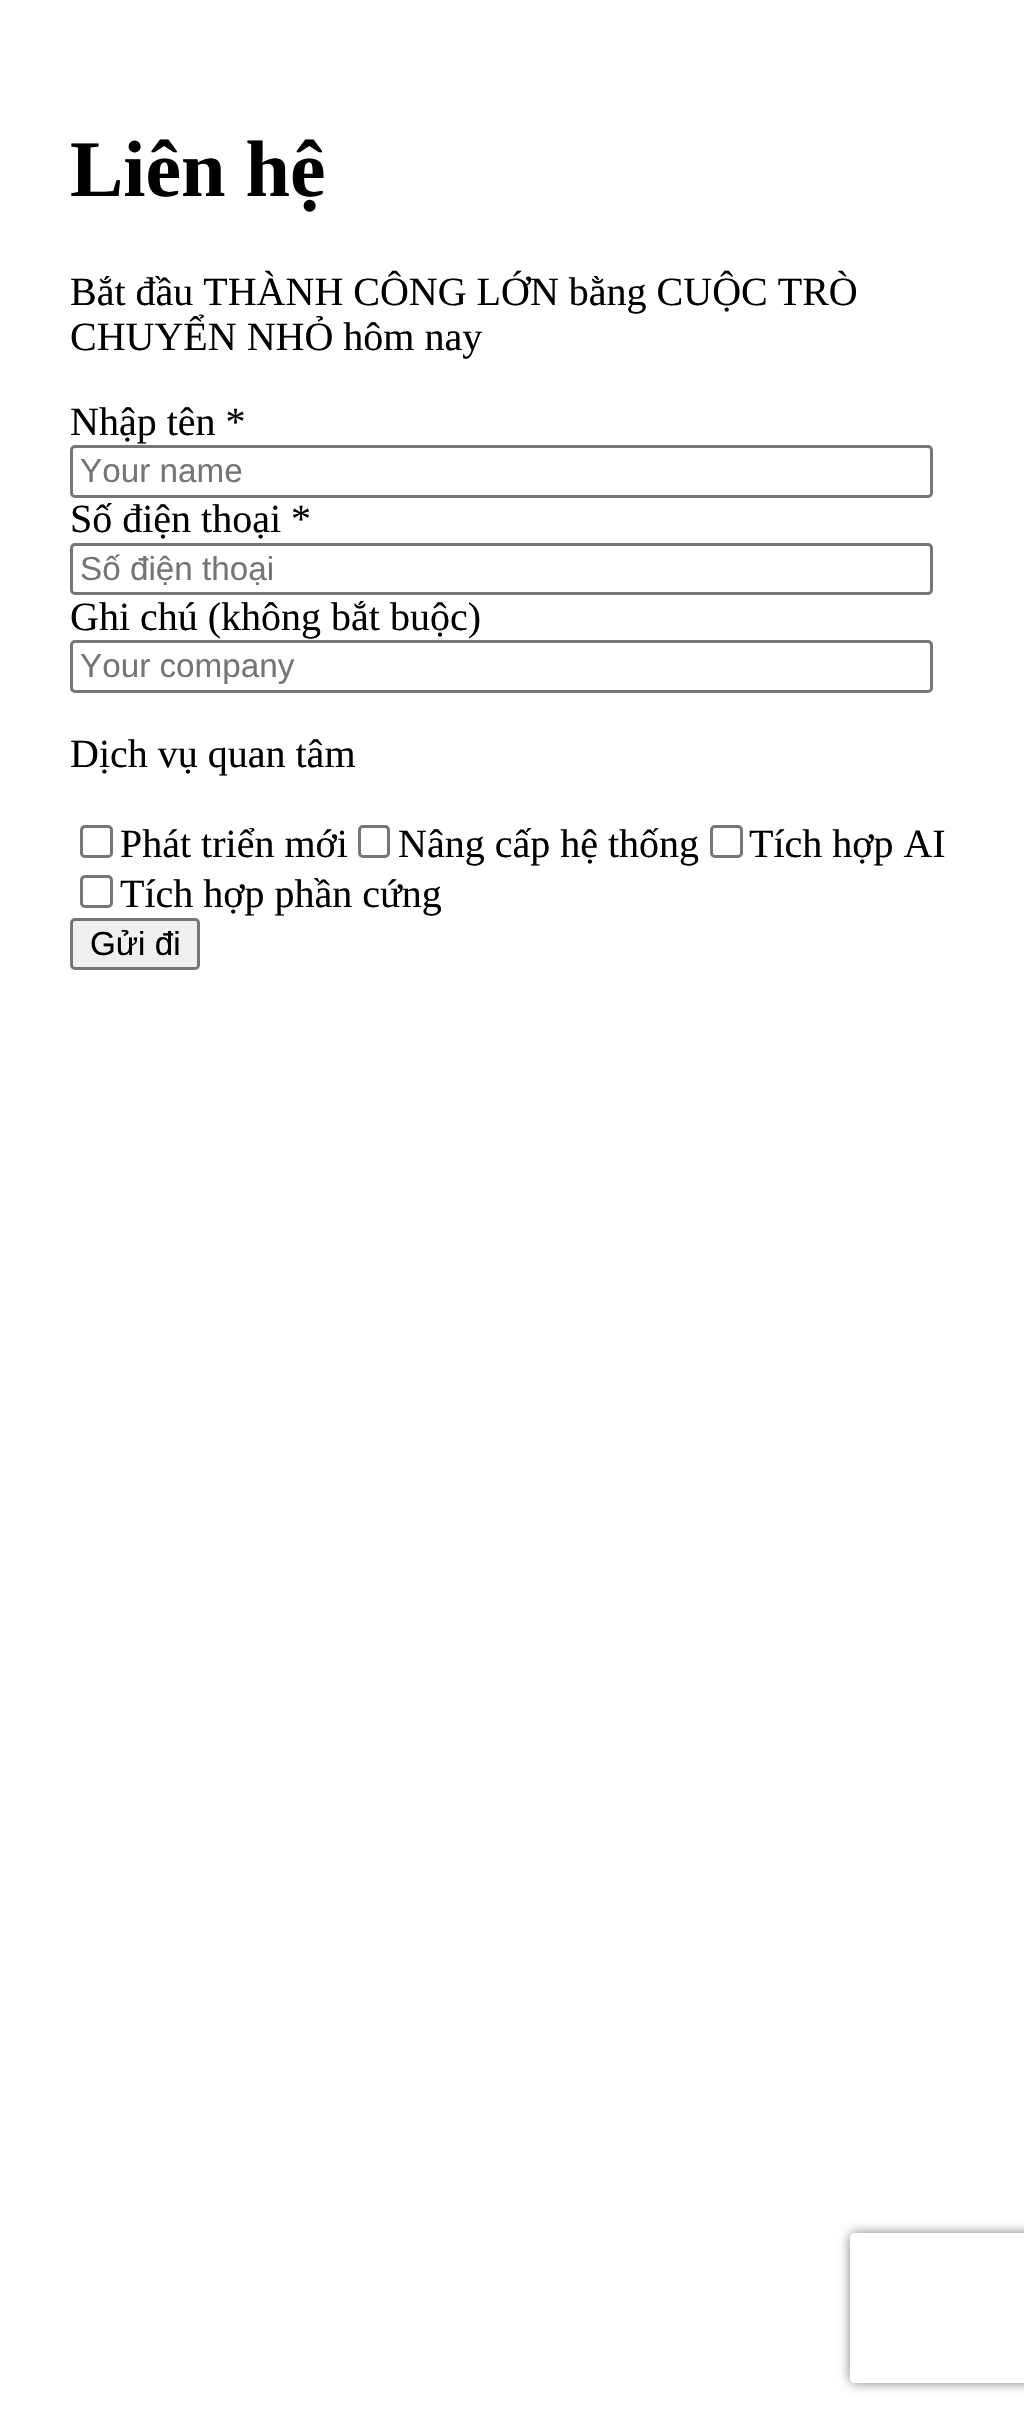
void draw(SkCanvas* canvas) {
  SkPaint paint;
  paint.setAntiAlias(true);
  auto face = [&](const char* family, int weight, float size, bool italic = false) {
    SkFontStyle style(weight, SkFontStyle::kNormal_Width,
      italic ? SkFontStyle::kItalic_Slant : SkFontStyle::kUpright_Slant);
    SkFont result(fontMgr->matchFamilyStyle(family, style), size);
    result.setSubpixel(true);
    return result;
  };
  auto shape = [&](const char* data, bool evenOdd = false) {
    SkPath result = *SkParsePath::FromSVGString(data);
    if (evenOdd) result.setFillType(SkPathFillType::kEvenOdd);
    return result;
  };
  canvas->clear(0xffffffff);
  paint.setStroke(true);
  paint.setStrokeWidth(3);
  paint.setColor(0xff767676);
  canvas->drawRoundRect(SkRect::MakeXYWH(71.5f, 446.5f, 860, 50), 3.5f, 3.5f, paint);
  canvas->drawRoundRect(SkRect::MakeXYWH(71.5f, 544.5f, 860, 49), 3.5f, 3.5f, paint);
  canvas->drawRoundRect(SkRect::MakeXYWH(71.5f, 641.5f, 860, 50), 3.5f, 3.5f, paint);
  canvas->drawRoundRect(SkRect::MakeXYWH(81.5f, 826.5f, 30, 30), 3.5f, 3.5f, paint);
  canvas->drawRoundRect(SkRect::MakeXYWH(359.5f, 826.5f, 29, 30), 3.5f, 3.5f, paint);
  canvas->drawRoundRect(SkRect::MakeXYWH(711.5f, 826.5f, 30, 30), 3.5f, 3.5f, paint);
  canvas->drawRoundRect(SkRect::MakeXYWH(81.5f, 876.5f, 30, 30), 3.5f, 3.5f, paint);
  paint.setStroke(false);
  paint.setColor(0xffefefef);
  canvas->drawRoundRect(SkRect::MakeXYWH(71.5f, 919.5f, 127, 49), 3.5f, 3.5f, paint);
  paint.setStroke(true);
  paint.setColor(0xff767676);
  canvas->drawRoundRect(SkRect::MakeXYWH(71.5f, 919.5f, 127, 49), 3.5f, 3.5f, paint);
  canvas->save();
  canvas->clipPath(shape("M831 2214H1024V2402H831ZM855 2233H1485C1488 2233 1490 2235 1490 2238V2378C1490 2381 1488 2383 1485 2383H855C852 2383 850 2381 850 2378V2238C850 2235 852 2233 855 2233Z", true), true);
  paint.setStroke(false);
  paint.setColor(0xff808080);
  paint.setMaskFilter(SkMaskFilter::MakeBlur(kNormal_SkBlurStyle, 6));
  canvas->drawRoundRect(SkRect::MakeXYWH(850, 2233, 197, 150), 5, 5, paint);
  paint.setMaskFilter(nullptr);
  canvas->restore();
  auto f0 = face("Liberation Serif", 700, 80);
  paint.setColor(0xff000000);
  canvas->drawString("Liên hệ", 70, 196, f0, paint);
  auto f1 = face("Liberation Serif", 400, 40);
  {
    const struct { const char* s; float x, y; } items[] = {
      {"Bắt đầu THÀNH CÔNG LỚN bằng CUỘC TRÒ", 70, 305},
      {"CHUYỂN NHỎ hôm nay", 70, 350},
      {"Nhập tên *", 70, 435},
    };
    for (auto [s, x, y] : items) {
      canvas->drawString(s, x, y, f1, paint);
    }
  }
  auto f2 = face("Liberation Sans", 400, 33.25f);
  paint.setColor(0xff757575);
  canvas->drawString("Your name", 80, 482, f2, paint);
  paint.setColor(0xff000000);
  canvas->drawString("Số điện thoại *", 70, 532, f1, paint);
  paint.setColor(0xff757575);
  canvas->drawString("Số điện thoại", 80, 580, f2, paint);
  paint.setColor(0xff000000);
  canvas->drawString("Ghi chú (không bắt buộc)", 70, 630, f1, paint);
  paint.setColor(0xff757575);
  canvas->drawString("Your company", 80, 677, f2, paint);
  paint.setColor(0xff000000);
  {
    const struct { const char* s; float x, y; } items[] = {
      {"Dịch vụ quan tâm", 70, 767},
      {"Phát triển mới", 120, 857},
      {"Nâng cấp hệ thống", 398, 857},
      {"Tích hợp AI", 749, 857},
      {"Tích hợp phần cứng", 120, 907},
    };
    for (auto [s, x, y] : items) {
      canvas->drawString(s, x, y, f1, paint);
    }
  }
  canvas->drawString("Gửi đi", 90, 955, f2, paint);
}
